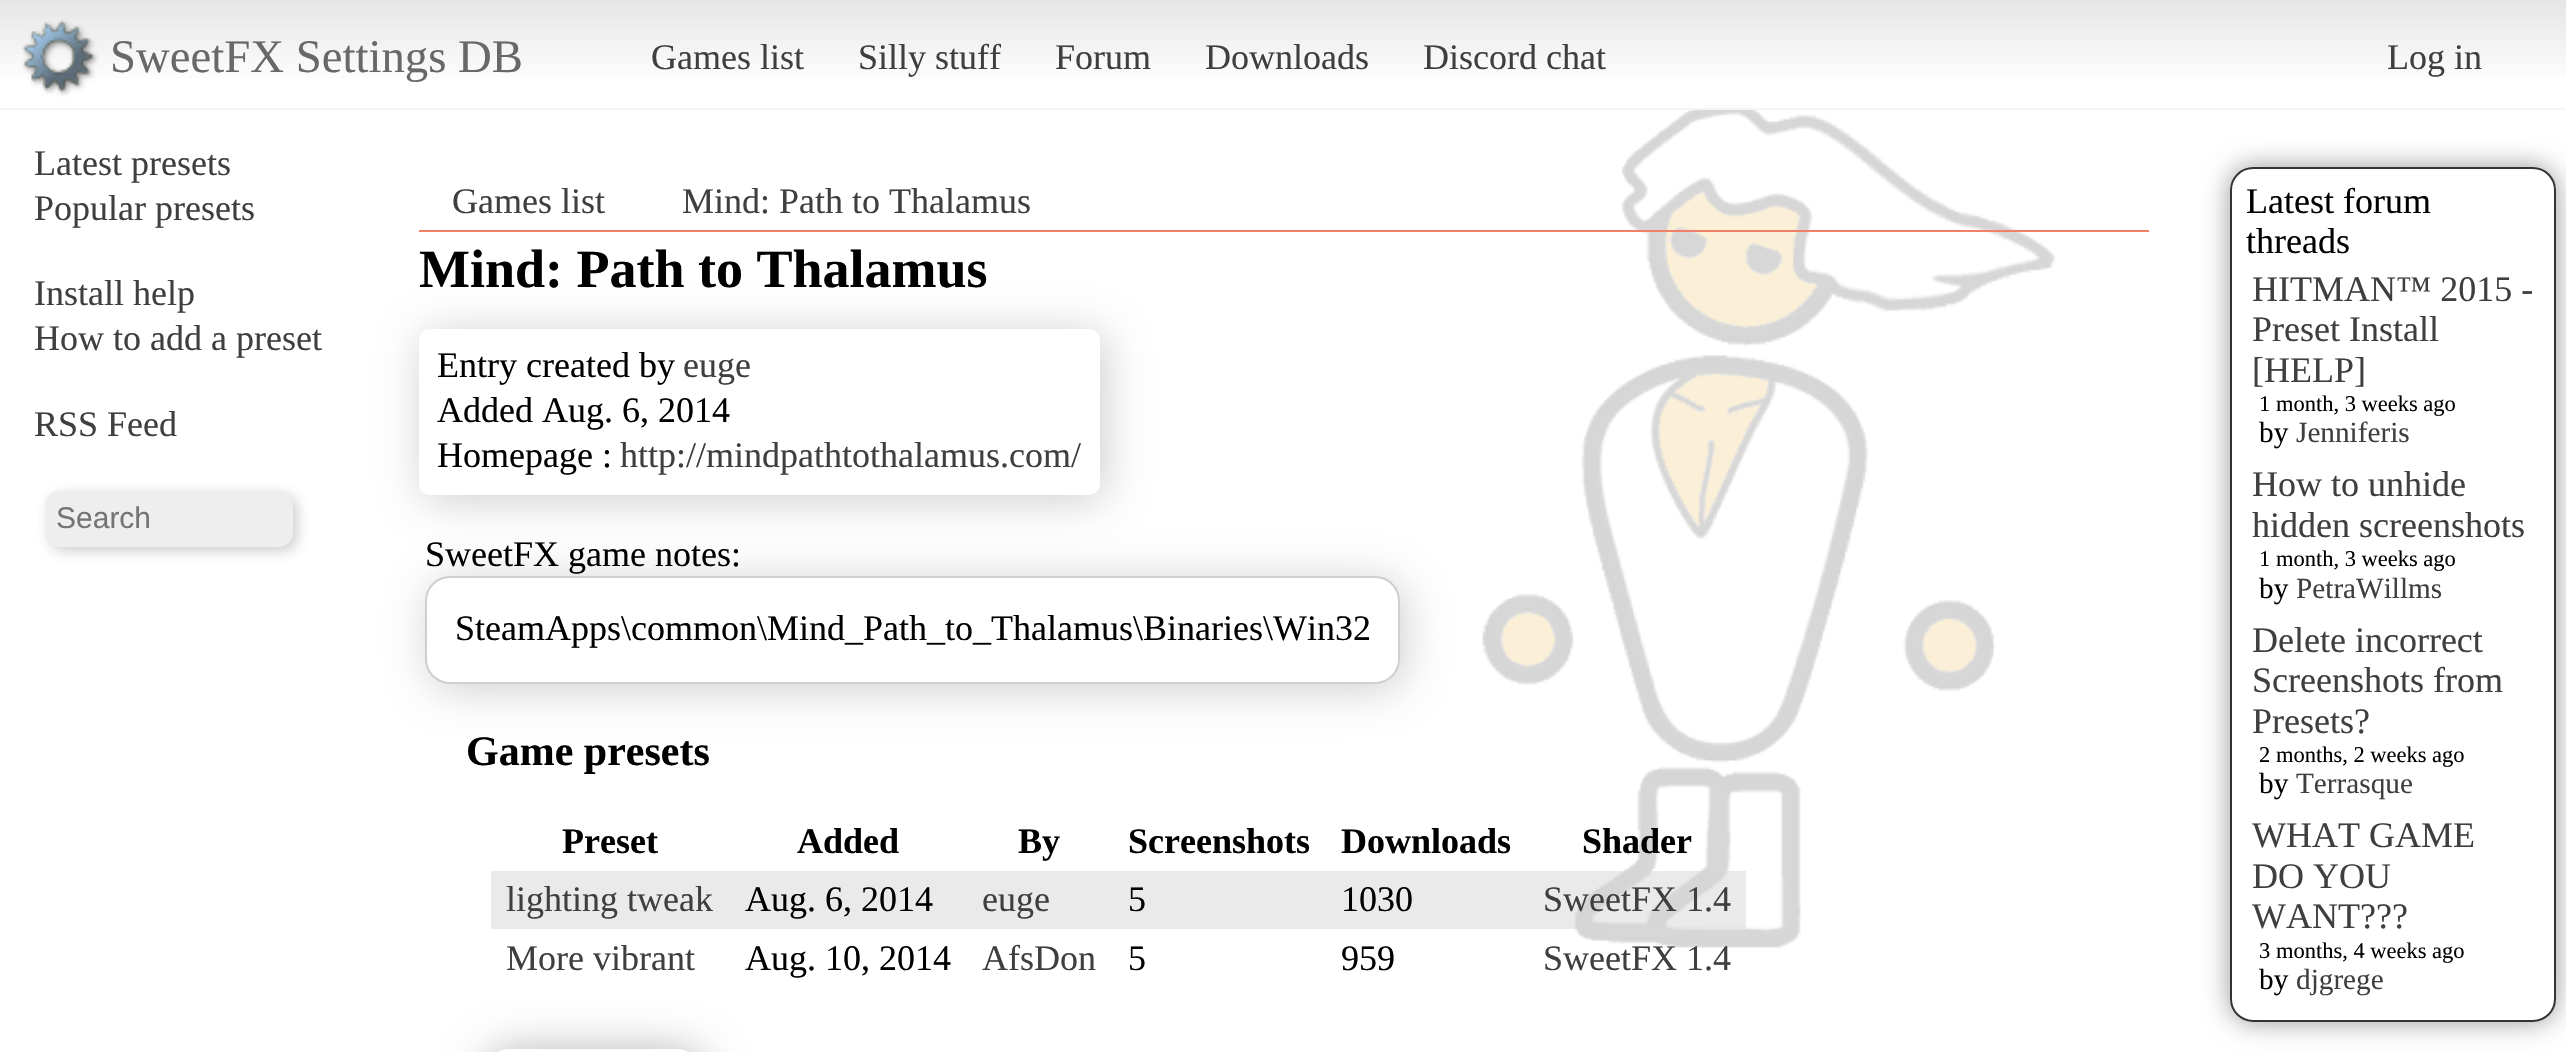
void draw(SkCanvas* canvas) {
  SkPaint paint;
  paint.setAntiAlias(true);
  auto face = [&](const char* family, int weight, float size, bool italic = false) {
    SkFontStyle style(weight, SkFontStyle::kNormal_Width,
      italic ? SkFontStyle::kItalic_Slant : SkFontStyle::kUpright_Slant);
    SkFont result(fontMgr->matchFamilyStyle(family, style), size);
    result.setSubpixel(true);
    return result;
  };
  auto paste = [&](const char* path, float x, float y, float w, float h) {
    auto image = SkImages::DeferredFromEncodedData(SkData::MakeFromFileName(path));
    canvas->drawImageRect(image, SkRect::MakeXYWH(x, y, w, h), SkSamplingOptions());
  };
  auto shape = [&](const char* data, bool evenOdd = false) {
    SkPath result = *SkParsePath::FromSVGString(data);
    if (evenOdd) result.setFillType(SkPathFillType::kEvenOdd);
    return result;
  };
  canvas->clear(0xffffffff);
  paste("img/1.png", 1482, 110, 575, 838);
  {
    const SkColor colors[] = {0xffe6e6e6, 0xffffffff};
    const float stops[] = {0, 0.8f};
    const SkPoint ends[] = {{1284, 0}, {1284, 108}};
    paint.setShader(SkGradientShader::MakeLinear(ends, colors, stops, 2, SkTileMode::kClamp));
    paint.setAlpha(255);
  }
  canvas->drawRect(SkRect::MakeXYWH(0, 0, 2566, 78), paint);
  paint.setShader(nullptr);
  paint.setColor(0xfff5f5f5);
  canvas->drawRect(SkRect::MakeXYWH(0, 108, 2566, 2), paint);
  paste("img/2.png", 22, 19, 77, 78);
  paint.setColor(0x40323232);
  paint.setMaskFilter(SkMaskFilter::MakeBlur(kNormal_SkBlurStyle, 7));
  canvas->drawRoundRect(SkRect::MakeXYWH(50, 495, 247, 56), 14, 14, paint);
  paint.setMaskFilter(nullptr);
  paint.setColor(0xffeeeeee);
  canvas->drawRoundRect(SkRect::MakeXYWH(45, 491, 248, 56), 14, 14, paint);
  paint.setColor(0xfff0806a);
  canvas->drawRect(SkRect::MakeXYWH(419, 230, 1730, 2), paint);
  paint.setColor(0xadb6b6b6);
  paint.setMaskFilter(SkMaskFilter::MakeBlur(kNormal_SkBlurStyle, 22.5f));
  canvas->drawRoundRect(SkRect::MakeXYWH(423, 333, 682, 167), 11, 11, paint);
  paint.setMaskFilter(nullptr);
  paint.setColor(0xffffffff);
  canvas->drawRoundRect(SkRect::MakeXYWH(419, 329, 681, 166), 11, 11, paint);
  paint.setColor(0xadb6b6b6);
  paint.setMaskFilter(SkMaskFilter::MakeBlur(kNormal_SkBlurStyle, 22.5f));
  canvas->drawRoundRect(SkRect::MakeXYWH(430, 581, 974, 108), 25, 25, paint);
  paint.setMaskFilter(nullptr);
  paint.setColor(0xffffffff);
  canvas->drawRoundRect(SkRect::MakeXYWH(425, 576, 975, 108), 25, 25, paint);
  paint.setStroke(true);
  paint.setStrokeWidth(2);
  paint.setColor(0x30000000);
  canvas->drawRoundRect(SkRect::MakeXYWH(426, 577, 973, 106), 24, 24, paint);
  paint.setStroke(false);
  paint.setColor(0x7dd5d5d5);
  canvas->drawRect(SkRect::MakeXYWH(491, 871, 1255, 58), paint);
  canvas->save();
  canvas->clipPath(shape("M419 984H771V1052H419ZM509 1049H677C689.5 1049 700 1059.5 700 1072V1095C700 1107.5 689.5 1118 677 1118H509C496.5 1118 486 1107.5 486 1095V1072C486 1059.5 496.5 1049 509 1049Z", true), true);
  paint.setColor(0x54000000);
  paint.setMaskFilter(SkMaskFilter::MakeBlur(kNormal_SkBlurStyle, 22.5f));
  canvas->drawRoundRect(SkRect::MakeXYWH(488, 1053, 214, 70), 23, 23, paint);
  paint.setMaskFilter(nullptr);
  canvas->restore();
  canvas->save();
  canvas->clipPath(shape("M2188 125H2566V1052H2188ZM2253 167H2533C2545.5 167 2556 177.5 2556 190V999C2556 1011.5 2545.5 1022 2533 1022H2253C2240.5 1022 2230 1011.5 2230 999V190C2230 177.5 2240.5 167 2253 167Z", true), true);
  paint.setColor(0xff999999);
  paint.setMaskFilter(SkMaskFilter::MakeBlur(kNormal_SkBlurStyle, 13.5f));
  canvas->drawRoundRect(SkRect::MakeXYWH(2230, 167, 326, 855), 23, 23, paint);
  paint.setMaskFilter(nullptr);
  canvas->restore();
  paint.setStroke(true);
  paint.setColor(0xff333333);
  canvas->drawRoundRect(SkRect::MakeXYWH(2231, 168, 324, 853), 22, 22, paint);
  auto f0 = face("Liberation Serif", 400, 46.75f);
  paint.setStroke(false);
  paint.setColor(0xff686868);
  canvas->drawString("SweetFX Settings DB", 110, 72, f0, paint);
  auto f1 = face("Liberation Serif", 400, 36);
  paint.setColor(0xff3f3f3f);
  {
    const struct { const char* s; float x, y; } items[] = {
      {"Games list", 651, 69},
      {"Silly stuff", 858, 69},
      {"Forum", 1055, 69},
      {"Downloads", 1205, 69},
      {"Discord chat", 1423, 69},
      {"Log in", 2387, 69},
      {"Latest presets", 34, 175},
      {"Popular presets", 34, 220},
      {"Install help", 34, 305},
      {"How to add a preset", 34, 350},
      {"RSS Feed", 34, 436},
    };
    for (auto [s, x, y] : items) {
      canvas->drawString(s, x, y, f1, paint);
    }
  }
  auto f2 = face("Liberation Sans", 400, 30);
  paint.setColor(0xff757575);
  canvas->drawString("Search", 56, 528, f2, paint);
  paint.setColor(0xff3f3f3f);
  canvas->drawString("Games list", 452, 213, f1, paint);
  canvas->drawString("Mind: Path to Thalamus", 682, 213, f1, paint);
  auto f3 = face("Liberation Serif", 700, 54);
  paint.setColor(0xff000000);
  canvas->drawString("Mind: Path to Thalamus", 419, 287, f3, paint);
  canvas->drawString("Entry created by", 437, 377, f1, paint);
  paint.setColor(0xff3f3f3f);
  canvas->drawString("euge", 683, 377, f1, paint);
  paint.setColor(0xff000000);
  canvas->drawString("Added Aug. 6, 2014", 437, 422, f1, paint);
  canvas->drawString("Homepage :", 437, 467, f1, paint);
  paint.setColor(0xff3f3f3f);
  canvas->drawString("http://mindpathtothalamus.com/", 620, 467, f1, paint);
  paint.setColor(0xff000000);
  canvas->drawString("SweetFX game notes:", 425, 566, f1, paint);
  canvas->drawString("SteamApps\\common\\Mind_Path_to_Thalamus\\Binaries\\Win32", 455, 640, f1, paint);
  auto f4 = face("Liberation Serif", 700, 42);
  canvas->drawString("Game presets", 466, 765, f4, paint);
  auto f5 = face("Liberation Serif", 700, 36);
  {
    const struct { const char* s; float x, y; } items[] = {
      {"Preset", 562, 853},
      {"Added", 797, 853},
      {"By", 1018, 853},
      {"Screenshots", 1128, 853},
      {"Downloads", 1341, 853},
      {"Shader", 1582, 853},
    };
    for (auto [s, x, y] : items) {
      canvas->drawString(s, x, y, f5, paint);
    }
  }
  paint.setColor(0xff3f3f3f);
  canvas->drawString("lighting tweak", 506, 911, f1, paint);
  paint.setColor(0xff000000);
  canvas->drawString("Aug. 6, 2014", 745, 911, f1, paint);
  paint.setColor(0xff3f3f3f);
  canvas->drawString("euge", 982, 911, f1, paint);
  paint.setColor(0xff000000);
  canvas->drawString("5", 1128, 911, f1, paint);
  canvas->drawString("1030", 1341, 911, f1, paint);
  paint.setColor(0xff3f3f3f);
  canvas->drawString("SweetFX 1.4", 1543, 911, f1, paint);
  canvas->drawString("More vibrant", 506, 970, f1, paint);
  paint.setColor(0xff000000);
  canvas->drawString("Aug. 10, 2014", 745, 970, f1, paint);
  paint.setColor(0xff3f3f3f);
  canvas->drawString("AfsDon", 982, 970, f1, paint);
  paint.setColor(0xff000000);
  canvas->drawString("5", 1128, 970, f1, paint);
  canvas->drawString("959", 1341, 970, f1, paint);
  paint.setColor(0xff3f3f3f);
  canvas->drawString("SweetFX 1.4", 1543, 970, f1, paint);
  paint.setColor(0xff000000);
  canvas->drawString("Latest forum", 2246, 213, f1, paint);
  canvas->drawString("threads", 2246, 253, f1, paint);
  paint.setColor(0xff3f3f3f);
  {
    const struct { const char* s; float x, y; } items[] = {
      {"HITMAN™ 2015 -", 2252, 301},
      {"Preset Install", 2252, 341},
      {"[HELP]", 2252, 382},
    };
    for (auto [s, x, y] : items) {
      canvas->drawString(s, x, y, f1, paint);
    }
  }
  auto f6 = face("Liberation Serif", 400, 22.5f);
  paint.setColor(0xff000000);
  canvas->drawString("1 month, 3 weeks ago", 2259, 411, f6, paint);
  auto f7 = face("Liberation Serif", 400, 29.25f);
  canvas->drawString("by", 2259, 442, f7, paint);
  paint.setColor(0xff3f3f3f);
  canvas->drawString("Jenniferis", 2296, 442, f7, paint);
  canvas->drawString("How to unhide", 2252, 496, f1, paint);
  canvas->drawString("hidden screenshots", 2252, 537, f1, paint);
  paint.setColor(0xff000000);
  canvas->drawString("1 month, 3 weeks ago", 2259, 566, f6, paint);
  canvas->drawString("by", 2259, 598, f7, paint);
  paint.setColor(0xff3f3f3f);
  canvas->drawString("PetraWillms", 2296, 598, f7, paint);
  {
    const struct { const char* s; float x, y; } items[] = {
      {"Delete incorrect", 2252, 652},
      {"Screenshots from", 2252, 692},
      {"Presets?", 2252, 733},
    };
    for (auto [s, x, y] : items) {
      canvas->drawString(s, x, y, f1, paint);
    }
  }
  paint.setColor(0xff000000);
  canvas->drawString("2 months, 2 weeks ago", 2259, 762, f6, paint);
  canvas->drawString("by", 2259, 793, f7, paint);
  paint.setColor(0xff3f3f3f);
  canvas->drawString("Terrasque", 2296, 793, f7, paint);
  {
    const struct { const char* s; float x, y; } items[] = {
      {"WHAT GAME", 2252, 847},
      {"DO YOU", 2252, 888},
      {"WANT?\077?", 2252, 928},
    };
    for (auto [s, x, y] : items) {
      canvas->drawString(s, x, y, f1, paint);
    }
  }
  paint.setColor(0xff000000);
  canvas->drawString("3 months, 4 weeks ago", 2259, 958, f6, paint);
  canvas->drawString("by", 2259, 989, f7, paint);
  paint.setColor(0xff3f3f3f);
  canvas->drawString("djgrege", 2296, 989, f7, paint);
}
